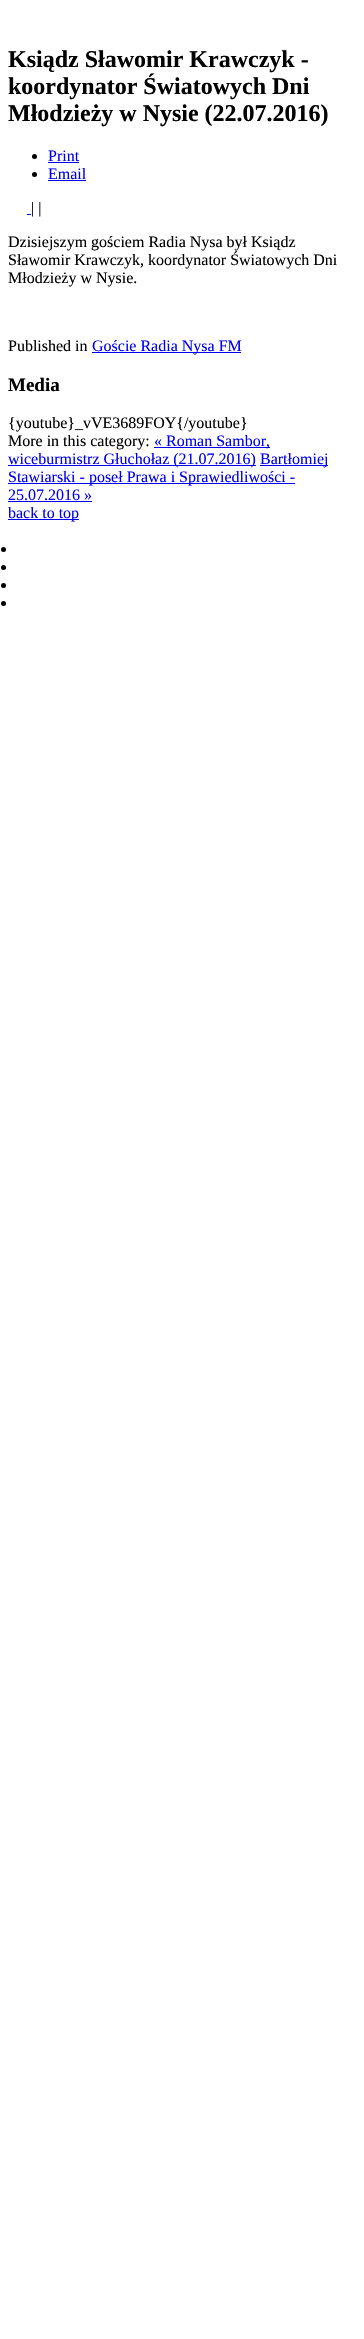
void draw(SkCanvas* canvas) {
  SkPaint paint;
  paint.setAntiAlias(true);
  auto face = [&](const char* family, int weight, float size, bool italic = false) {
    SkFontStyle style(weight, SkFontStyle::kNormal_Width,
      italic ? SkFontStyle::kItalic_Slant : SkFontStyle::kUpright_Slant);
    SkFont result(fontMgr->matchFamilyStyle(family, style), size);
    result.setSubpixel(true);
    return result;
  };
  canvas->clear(0xffffffff);
  paint.setColor(0xff000000);
  canvas->drawCircle(34.5f, 156.5f, 2.5f, paint);
  paint.setColor(0xff0000ee);
  canvas->drawRect(SkRect::MakeXYWH(48, 162, 31, 1), paint);
  paint.setColor(0xff000000);
  canvas->drawCircle(34.5f, 174.5f, 2.5f, paint);
  {
    const struct { float x, y, w, h; SkColor color; } items[] = {
      {48, 180, 38, 1, 0xff0000ee},
      {27, 214, 4, 1, 0xff0000ee},
      {92, 352, 149, 1, 0xff0000ee},
      {154, 447, 116, 1, 0xff0000ee},
      {8, 465, 248, 1, 0xff0000ee},
      {260, 465, 68, 1, 0xff0000ee},
      {8, 483, 287, 1, 0xff0000ee},
      {8, 501, 84, 1, 0xff0000ee},
      {8, 519, 71, 1, 0xff0000ee},
    };
    for (auto [x, y, w, h, color] : items) {
      paint.setColor(color);
      canvas->drawRect(SkRect::MakeXYWH(x, y, w, h), paint);
    }
  }
  paint.setColor(0xff000000);
  canvas->drawCircle(3.5f, 549.5f, 2.5f, paint);
  canvas->drawCircle(3.5f, 567.5f, 2.5f, paint);
  canvas->drawCircle(3.5f, 585.5f, 2.5f, paint);
  canvas->drawCircle(3.5f, 603.5f, 2.5f, paint);
  auto f0 = face("Liberation Serif", 700, 24);
  {
    const struct { const char* s; float x, y; } items[] = {
      {"Ksiądz Sławomir Krawczyk -", 8, 67},
      {"koordynator Światowych Dni", 8, 94},
      {"Młodzieży w Nysie (22.07.2016)", 8, 121},
    };
    for (auto [s, x, y] : items) {
      canvas->drawString(s, x, y, f0, paint);
    }
  }
  auto f1 = face("Liberation Serif", 400, 16);
  paint.setColor(0xff0000ee);
  canvas->drawString("Print", 48, 161, f1, paint);
  canvas->drawString("Email", 48, 179, f1, paint);
  paint.setColor(0xff000000);
  {
    const struct { const char* s; float x, y; } items[] = {
      {"| |", 31, 213},
      {"Dzisiejszym gościem Radia Nysa był Ksiądz", 8, 247},
      {"Sławomir Krawczyk, koordynator Światowych Dni", 8, 265},
      {"Młodzieży w Nysie.", 8, 283},
      {"Published in", 8, 351},
    };
    for (auto [s, x, y] : items) {
      canvas->drawString(s, x, y, f1, paint);
    }
  }
  paint.setColor(0xff0000ee);
  canvas->drawString("Goście Radia Nysa FM", 92, 351, f1, paint);
  auto f2 = face("Liberation Serif", 700, 19);
  paint.setColor(0xff000000);
  canvas->drawString("Media", 8, 391, f2, paint);
  canvas->drawString("{youtube}_vVE3689FOY{/youtube}", 8, 428, f1, paint);
  canvas->drawString("More in this category:", 8, 446, f1, paint);
  paint.setColor(0xff0000ee);
  {
    const struct { const char* s; float x, y; } items[] = {
      {"« Roman Sambor,", 154, 446},
      {"wiceburmistrz Głuchołaz (21.07.2016)", 8, 464},
      {"Bartłomiej", 260, 464},
      {"Stawiarski - poseł Prawa i Sprawiedliwości -", 8, 482},
      {"25.07.2016 »", 8, 500},
      {"back to top", 8, 518},
    };
    for (auto [s, x, y] : items) {
      canvas->drawString(s, x, y, f1, paint);
    }
  }
}
